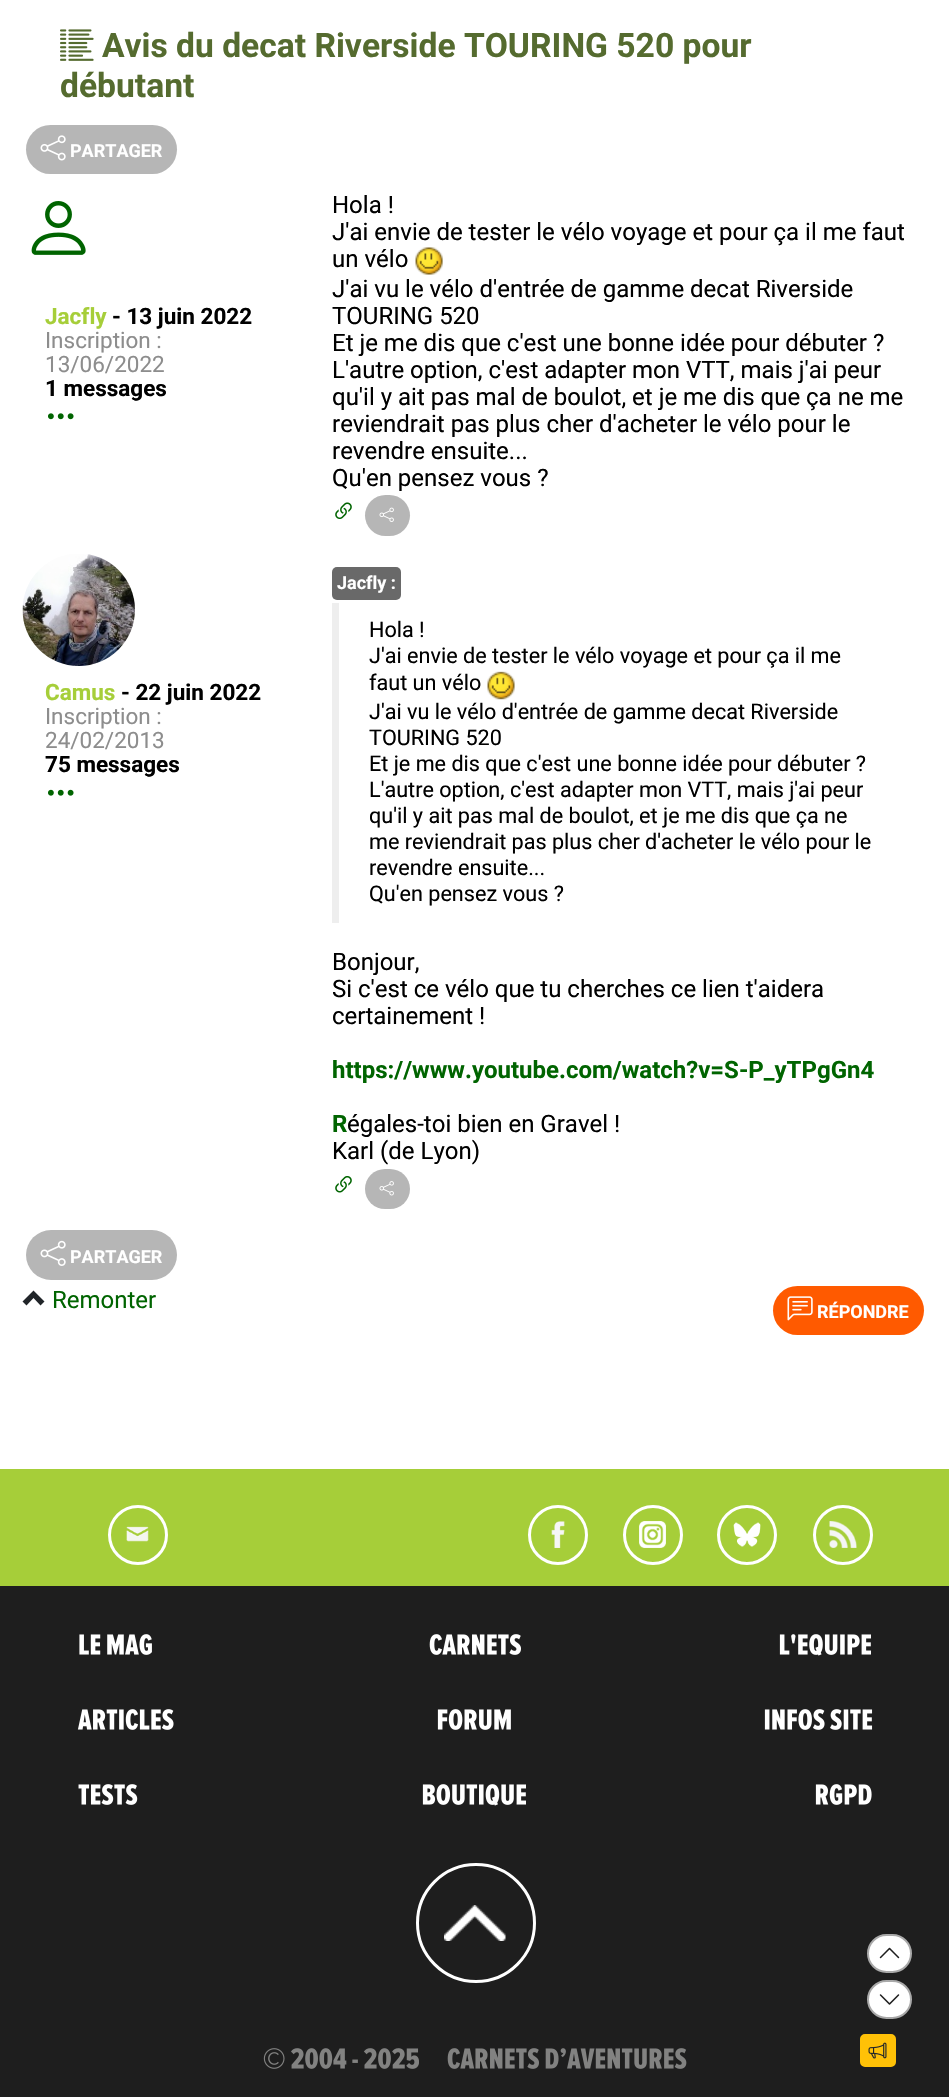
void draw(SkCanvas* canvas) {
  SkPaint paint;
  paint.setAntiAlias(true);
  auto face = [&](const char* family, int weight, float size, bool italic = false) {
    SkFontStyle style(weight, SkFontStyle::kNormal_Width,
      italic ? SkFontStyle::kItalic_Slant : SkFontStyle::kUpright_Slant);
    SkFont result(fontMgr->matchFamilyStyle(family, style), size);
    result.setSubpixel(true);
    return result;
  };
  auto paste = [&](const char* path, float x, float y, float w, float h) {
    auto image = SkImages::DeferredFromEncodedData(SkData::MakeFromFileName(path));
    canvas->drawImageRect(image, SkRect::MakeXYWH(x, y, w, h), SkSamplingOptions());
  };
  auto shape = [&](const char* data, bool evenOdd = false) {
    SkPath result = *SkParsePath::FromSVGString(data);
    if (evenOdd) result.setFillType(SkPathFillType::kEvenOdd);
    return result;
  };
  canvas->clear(0xffffffff);
  paste("img/1.png", 60, 29, 34, 32);
  paint.setColor(0xffb6b6b6);
  canvas->drawRoundRect(SkRect::MakeXYWH(26, 125, 151, 49), 24.5f, 24.5f, paint);
  paste("img/2.png", 40, 135, 26, 26);
  paste("img/3.png", 31, 201, 55, 54);
  paste("img/4.png", 48, 413, 26, 7);
  paste("img/5.png", 415, 247, 28, 28);
  paste("img/6.png", 335, 502, 17, 17);
  canvas->drawRoundRect(SkRect::MakeXYWH(365, 495, 45, 41), 20.5f, 20.5f, paint);
  paste("img/7.png", 379, 507, 15, 15);
  paste("img/8.png", 22, 554, 113, 112);
  paste("img/9.png", 48, 789, 26, 7);
  paint.setColor(0xff696969);
  canvas->drawRoundRect(SkRect::MakeXYWH(332, 567, 69, 33), 5, 5, paint);
  paint.setColor(0xffeeeeee);
  canvas->drawRect(SkRect::MakeXYWH(332, 603, 7, 320), paint);
  paste("img/10.png", 487, 671, 28, 29);
  paste("img/11.png", 335, 1176, 17, 17);
  paint.setColor(0xffb6b6b6);
  canvas->drawRoundRect(SkRect::MakeXYWH(365, 1169, 45, 40), 20, 20, paint);
  paste("img/12.png", 379, 1181, 15, 15);
  canvas->drawRoundRect(SkRect::MakeXYWH(26, 1230, 151, 50), 25, 25, paint);
  paste("img/13.png", 40, 1240, 26, 26);
  paint.setColor(0xffff5a00);
  canvas->drawRoundRect(SkRect::MakeXYWH(773, 1286, 151, 49), 24.5f, 24.5f, paint);
  paste("img/14.png", 787, 1296, 26, 25);
  paint.setColor(0xff212529);
  canvas->drawPath(shape("M44.5 1301.5L40.5 1305.5L33.5 1298L26.5 1305.5L22.5 1301.5L33.5 1290.5Z"), paint);
  paint.setColor(0xffa6ce39);
  canvas->drawRect(SkRect::MakeXYWH(0, 1469, 949, 117), paint);
  paste("img/15.png", 126, 1526, 23, 16);
  paint.setStroke(true);
  paint.setStrokeWidth(3);
  paint.setColor(0xffffffff);
  canvas->drawCircle(138, 1535, 28.5f, paint);
  paste("img/16.png", 551, 1521, 14, 27);
  canvas->drawCircle(558, 1535, 28.5f, paint);
  paste("img/17.png", 639, 1521, 27, 27);
  canvas->drawCircle(653, 1535, 28.5f, paint);
  paste("img/18.png", 733, 1522, 28, 25);
  canvas->drawCircle(747, 1535, 28.5f, paint);
  paste("img/19.png", 829, 1521, 28, 27);
  canvas->drawCircle(843, 1535, 28.5f, paint);
  paint.setStroke(false);
  paint.setColor(0xff1e1e1e);
  canvas->drawRect(SkRect::MakeXYWH(0, 1586, 949, 511), paint);
  paste("img/20.png", 79, 1634, 73, 21);
  paste("img/21.png", 77, 1709, 97, 21);
  paste("img/22.png", 78, 1784, 60, 21);
  paste("img/23.png", 429, 1634, 92, 21);
  paste("img/24.png", 437, 1709, 74, 21);
  paste("img/25.png", 422, 1784, 104, 22);
  paste("img/26.png", 779, 1634, 92, 22);
  paste("img/27.png", 764, 1709, 109, 21);
  paste("img/28.png", 815, 1784, 57, 21);
  paste("img/29.png", 444, 1905, 62, 36);
  paint.setStroke(true);
  paint.setColor(0xffffffff);
  canvas->drawCircle(476, 1923, 58.5f, paint);
  paste("img/30.png", 263, 2048, 156, 21);
  paste("img/31.png", 447, 2048, 240, 21);
  paint.setStroke(false);
  canvas->drawRoundRect(SkRect::MakeXYWH(868, 1935, 43, 37), 18.5f, 18.5f, paint);
  paint.setStroke(true);
  paint.setStrokeWidth(2);
  paint.setColor(0xffa9a9a9);
  canvas->drawRoundRect(SkRect::MakeXYWH(868, 1935, 43, 37), 18.5f, 18.5f, paint);
  paste("img/32.png", 879, 1947, 21, 12);
  paint.setStroke(false);
  paint.setColor(0xffffffff);
  canvas->drawRoundRect(SkRect::MakeXYWH(868, 1981, 43, 37), 18.5f, 18.5f, paint);
  paint.setStroke(true);
  paint.setColor(0xffa9a9a9);
  canvas->drawRoundRect(SkRect::MakeXYWH(868, 1981, 43, 37), 18.5f, 18.5f, paint);
  paste("img/33.png", 879, 1994, 21, 11);
  paint.setStroke(false);
  paint.setColor(0xffffc107);
  canvas->drawRoundRect(SkRect::MakeXYWH(861, 2035, 34, 31), 4, 4, paint);
  paint.setStroke(true);
  canvas->drawRoundRect(SkRect::MakeXYWH(861, 2035, 34, 31), 4, 4, paint);
  paste("img/34.png", 868, 2042, 19, 17);
  auto f0 = face("Roboto", 700, 33.6f);
  paint.setStroke(false);
  paint.setColor(0xff556b2f);
  canvas->drawString("Avis du decat Riverside TOURING 520 pour", 102, 57, f0, paint);
  canvas->drawString("débutant", 60, 97, f0, paint);
  auto f1 = face("Roboto", 700, 18);
  paint.setColor(0xffffffff);
  canvas->drawString("PARTAGER", 70, 157, f1, paint);
  auto f2 = face("Roboto", 700, 22.5f);
  paint.setColor(0xffa6ce39);
  canvas->drawString("Jacfly", 45, 324, f2, paint);
  paint.setColor(0xff000000);
  canvas->drawString("- 13 juin 2022", 112, 324, f2, paint);
  auto f3 = face("Roboto", 400, 22.5f);
  paint.setColor(0xff8d8d8d);
  canvas->drawString("Inscription :", 45, 348, f3, paint);
  canvas->drawString("13/06/2022", 45, 372, f3, paint);
  paint.setColor(0xff000000);
  canvas->drawString("1 messages", 45, 396, f2, paint);
  auto f4 = face("Roboto", 400, 24);
  {
    const struct { const char* s; float x, y; } items[] = {
      {"Hola !", 332, 213},
      {"J'ai envie de tester le vélo voyage et pour ça il me faut", 332, 240},
      {"un vélo", 332, 267},
      {"J'ai vu le vélo d'entrée de gamme decat Riverside", 332, 297},
      {"TOURING 520", 332, 324},
      {"Et je me dis que c'est une bonne idée pour débuter ?", 332, 351},
      {"L'autre option, c'est adapter mon VTT, mais j'ai peur", 332, 378},
      {"qu'il y ait pas mal de boulot, et je me dis que ça ne me", 332, 405},
      {"reviendrait pas plus cher d'acheter le vélo pour le", 332, 432},
      {"revendre ensuite...", 332, 459},
      {"Qu'en pensez vous ?", 332, 486},
    };
    for (auto [s, x, y] : items) {
      canvas->drawString(s, x, y, f4, paint);
    }
  }
  paint.setColor(0xffa6ce39);
  canvas->drawString("Camus", 45, 700, f2, paint);
  paint.setColor(0xff000000);
  canvas->drawString("- 22 juin 2022", 121, 700, f2, paint);
  paint.setColor(0xff8d8d8d);
  canvas->drawString("Inscription :", 45, 724, f3, paint);
  canvas->drawString("24/02/2013", 45, 748, f3, paint);
  paint.setColor(0xff000000);
  canvas->drawString("75 messages", 45, 772, f2, paint);
  paint.setColor(0xffffffff);
  canvas->drawString("Jacfly :", 337, 589, f1, paint);
  auto f5 = face("Roboto", 400, 21.6f);
  paint.setColor(0xff000000);
  {
    const struct { const char* s; float x, y; } items[] = {
      {"Hola !", 369, 637},
      {"J'ai envie de tester le vélo voyage et pour ça il me", 369, 663},
      {"faut un vélo", 369, 690},
      {"J'ai vu le vélo d'entrée de gamme decat Riverside", 369, 719},
      {"TOURING 520", 369, 745},
      {"Et je me dis que c'est une bonne idée pour débuter ?", 369, 771},
      {"L'autre option, c'est adapter mon VTT, mais j'ai peur", 369, 797},
      {"qu'il y ait pas mal de boulot, et je me dis que ça ne", 369, 823},
      {"me reviendrait pas plus cher d'acheter le vélo pour le", 369, 849},
      {"revendre ensuite...", 369, 875},
      {"Qu'en pensez vous ?", 369, 901},
    };
    for (auto [s, x, y] : items) {
      canvas->drawString(s, x, y, f5, paint);
    }
  }
  {
    const struct { const char* s; float x, y; } items[] = {
      {"Bonjour,", 332, 970},
      {"Si c'est ce vélo que tu cherches ce lien t'aidera", 332, 997},
      {"certainement !", 332, 1024},
    };
    for (auto [s, x, y] : items) {
      canvas->drawString(s, x, y, f4, paint);
    }
  }
  auto f6 = face("Roboto", 700, 24);
  paint.setColor(0xff006400);
  canvas->drawString("https://www.youtube.com/watch?v=S-P_yTPgGn4", 332, 1078, f6, paint);
  canvas->drawString("R", 332, 1132, f6, paint);
  paint.setColor(0xff000000);
  canvas->drawString("égales-toi bien en Gravel !", 347, 1132, f4, paint);
  canvas->drawString("Karl (de Lyon)", 332, 1159, f4, paint);
  paint.setColor(0xffffffff);
  canvas->drawString("PARTAGER", 70, 1263, f1, paint);
  canvas->drawString("RÉPONDRE", 817, 1318, f1, paint);
  paint.setColor(0xff006400);
  canvas->drawString("Remonter", 52, 1308, f4, paint);
}
